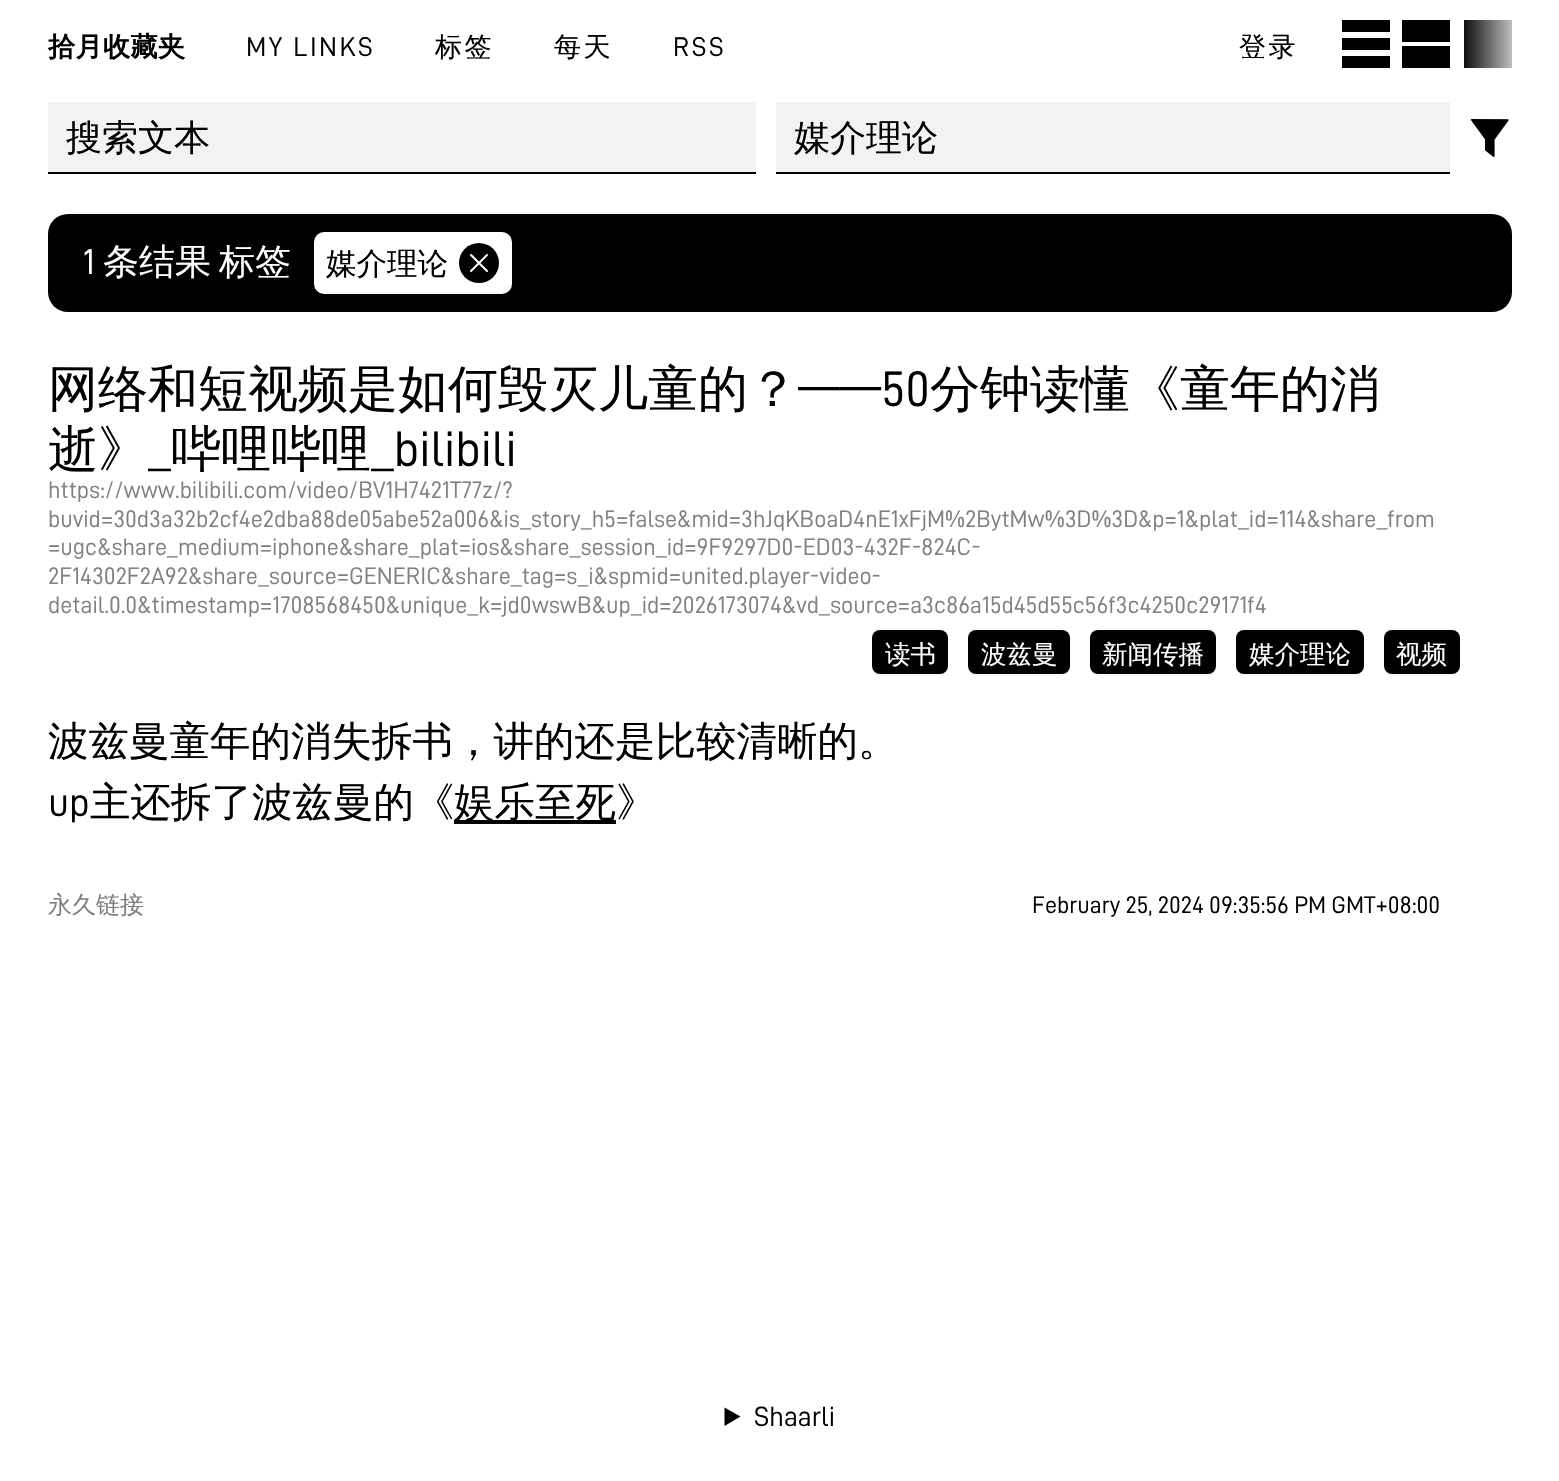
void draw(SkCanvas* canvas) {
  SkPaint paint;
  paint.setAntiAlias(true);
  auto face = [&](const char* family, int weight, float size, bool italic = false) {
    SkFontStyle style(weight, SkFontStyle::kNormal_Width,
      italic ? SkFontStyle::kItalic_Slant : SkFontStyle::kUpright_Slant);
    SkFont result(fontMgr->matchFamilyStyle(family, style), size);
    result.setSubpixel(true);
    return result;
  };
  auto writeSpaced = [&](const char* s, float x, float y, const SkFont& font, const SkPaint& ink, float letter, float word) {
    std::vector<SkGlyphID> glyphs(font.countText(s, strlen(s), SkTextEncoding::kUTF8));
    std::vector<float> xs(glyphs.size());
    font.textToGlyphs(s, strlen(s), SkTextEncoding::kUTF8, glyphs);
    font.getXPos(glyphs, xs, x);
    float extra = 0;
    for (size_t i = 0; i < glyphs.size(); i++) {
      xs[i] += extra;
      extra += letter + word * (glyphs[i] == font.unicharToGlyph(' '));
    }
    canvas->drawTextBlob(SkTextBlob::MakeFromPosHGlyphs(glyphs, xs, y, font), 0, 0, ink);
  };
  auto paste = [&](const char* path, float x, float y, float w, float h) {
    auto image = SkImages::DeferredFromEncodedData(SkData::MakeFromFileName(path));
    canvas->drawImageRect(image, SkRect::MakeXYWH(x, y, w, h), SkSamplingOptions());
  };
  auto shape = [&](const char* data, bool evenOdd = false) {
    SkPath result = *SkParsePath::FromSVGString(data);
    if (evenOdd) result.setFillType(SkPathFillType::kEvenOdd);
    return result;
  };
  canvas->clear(0xffffffff);
  {
    const struct { float x, y, w, h; SkColor color; } items[] = {
      {1342, 20, 48, 12, 0xff000000},
      {1342, 38, 48, 12, 0xff000000},
      {1342, 56, 48, 12, 0xff000000},
      {1402, 20, 48, 22, 0xff000000},
      {1402, 46, 48, 22, 0xff000000},
      {1464, 20, 48, 48, 0xff000000},
    };
    for (auto [x, y, w, h, color] : items) {
      paint.setColor(color);
      canvas->drawRect(SkRect::MakeXYWH(x, y, w, h), paint);
    }
  }
  {
    const SkColor colors[] = {0x00ffffff, 0xffffffff};
    const float stops[] = {0, 0.7f};
    const SkPoint ends[] = {{1460, 46}, {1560, 46}};
    paint.setShader(SkGradientShader::MakeLinear(ends, colors, stops, 2, SkTileMode::kClamp));
    paint.setAlpha(255);
  }
  canvas->drawRect(SkRect::MakeXYWH(1464, 20, 48, 48), paint);
  paint.setShader(nullptr);
  {
    const struct { float x, y, w, h; SkColor color; } items[] = {
      {48, 102, 708, 70, 0xfff2f2f2},
      {48, 172, 708, 2, 0xff000000},
      {776, 102, 674, 70, 0xfff2f2f2},
      {776, 172, 674, 2, 0xff000000},
    };
    for (auto [x, y, w, h, color] : items) {
      paint.setColor(color);
      canvas->drawRect(SkRect::MakeXYWH(x, y, w, h), paint);
    }
  }
  paste("img/1.png", 1470, 119, 39, 38);
  canvas->drawRoundRect(SkRect::MakeXYWH(48, 214, 1464, 98), 20, 20, paint);
  paint.setColor(0xffffffff);
  canvas->drawRoundRect(SkRect::MakeXYWH(314, 232, 198, 62), 10, 10, paint);
  paint.setColor(0xff000000);
  canvas->drawCircle(479, 263, 20, paint);
  paint.setStroke(true);
  paint.setStrokeWidth(2);
  paint.setStrokeCap(SkPaint::kRound_Cap);
  paint.setStrokeJoin(SkPaint::kRound_Join);
  paint.setColor(0xffffffff);
  canvas->drawPath(shape("M471 255L487 271M487 255L471 271"), paint);
  paint.setStroke(false);
  paint.setColor(0xff000000);
  canvas->drawRoundRect(SkRect::MakeXYWH(872, 630, 76, 44), 8, 8, paint);
  canvas->drawRoundRect(SkRect::MakeXYWH(968, 630, 102, 44), 8, 8, paint);
  canvas->drawRoundRect(SkRect::MakeXYWH(1090, 630, 126, 44), 8, 8, paint);
  canvas->drawRoundRect(SkRect::MakeXYWH(1236, 630, 128, 44), 8, 8, paint);
  canvas->drawRoundRect(SkRect::MakeXYWH(1384, 630, 76, 44), 8, 8, paint);
  canvas->drawRect(SkRect::MakeXYWH(454, 820, 162, 4), paint);
  canvas->drawPath(shape("M724.5 1407.5L740.5 1416.5L724.5 1426Z"), paint);
  auto f0 = face("WenQuanYi Zen Hei", 700, 27);
  writeSpaced("拾月收藏夹", 48, 56, f0, paint, 0.5f, 0);
  auto f1 = face("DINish", 400, 27);
  writeSpaced("MY LINKS", 246, 56, f1, paint, 2.5f, 0);
  auto f2 = face("WenQuanYi Zen Hei", 500, 27);
  writeSpaced("标签", 435, 56, f2, paint, 2.5f, 0);
  writeSpaced("每天", 554, 56, f2, paint, 2.5f, 0);
  writeSpaced("RSS", 673, 56, f1, paint, 2.5f, 0);
  writeSpaced("登录", 1239, 56, f2, paint, 2.5f, 0);
  auto f3 = face("WenQuanYi Zen Hei", 500, 36);
  canvas->drawString("搜索文本", 66, 150, f3, paint);
  canvas->drawString("媒介理论", 794, 150, f3, paint);
  auto f4 = face("DINish", 400, 36);
  paint.setColor(0xffffffff);
  canvas->drawString("1", 83, 274, f4, paint);
  canvas->drawString("条结果", 103, 274, f3, paint);
  canvas->drawString("标签", 219, 274, f3, paint);
  auto f5 = face("WenQuanYi Zen Hei", 500, 30.5f);
  paint.setColor(0xff000000);
  canvas->drawString("媒介理论", 326, 274, f5, paint);
  auto f6 = face("WenQuanYi Zen Hei", 500, 50);
  canvas->drawString("网络和短视频是如何毁灭儿童的？", 48, 406, f6, paint);
  auto f7 = face("DINish", 400, 50);
  canvas->drawString("——50", 798, 406, f7, paint);
  canvas->drawString("分钟读懂《童年的消", 930, 406, f6, paint);
  canvas->drawString("逝》", 48, 466, f6, paint);
  canvas->drawString("_", 148, 466, f7, paint);
  canvas->drawString("哔哩哔哩", 171, 466, f6, paint);
  canvas->drawString("_bilibili", 371, 466, f7, paint);
  auto f8 = face("DINish", 400, 24);
  paint.setColor(0xff808080);
  {
    const struct { const char* s; float x, y; } items[] = {
      {"https://www.bilibili.com/video/BV1H7421T77z/?", 48, 498},
      {"buvid=30d3a32b2cf4e2dba88de05abe52a006&is_story_h5=false&mid=3hJqKBoaD4nE1xFjM%2BytMw%3D%3D&p=1&plat_id=114&share_from", 48, 527},
      {"=ugc&share_medium=iphone&share_plat=ios&share_session_id=9F9297D0-ED03-432F-824C-", 48, 555},
      {"2F14302F2A92&share_source=GENERIC&share_tag=s_i&spmid=united.player-video-", 48, 584},
      {"detail.0.0&timestamp=1708568450&unique_k=jd0wswB&up_id=2026173074&vd_source=a3c86a15d45d55c56f3c4250c29171f4", 48, 613},
    };
    for (auto [s, x, y] : items) {
      canvas->drawString(s, x, y, f8, paint);
    }
  }
  auto f9 = face("WenQuanYi Zen Hei", 500, 25.5f);
  paint.setColor(0xffffffff);
  {
    const struct { const char* s; float x, y; } items[] = {
      {"读书", 885, 663},
      {"波兹曼", 981, 663},
      {"新闻传播", 1102, 663},
      {"媒介理论", 1249, 663},
      {"视频", 1396, 663},
    };
    for (auto [s, x, y] : items) {
      canvas->drawString(s, x, y, f9, paint);
    }
  }
  auto f10 = face("WenQuanYi Zen Hei", 500, 40.5f);
  paint.setColor(0xff000000);
  canvas->drawString("波兹曼童年的消失拆书，讲的还是比较清晰的。", 48, 755, f10, paint);
  auto f11 = face("DINish", 400, 40.5f);
  canvas->drawString("up", 48, 816, f11, paint);
  canvas->drawString("主还拆了波兹曼的《", 90, 816, f10, paint);
  canvas->drawString("娱乐至死》", 454, 816, f10, paint);
  auto f12 = face("WenQuanYi Zen Hei", 500, 24);
  paint.setColor(0xff808080);
  canvas->drawString("永久链接", 48, 913, f12, paint);
  paint.setColor(0xff000000);
  canvas->drawString("February 25, 2024 09:35:56 PM GMT+08:00", 1032, 913, f8, paint);
  auto f13 = face("DINish", 400, 28);
  canvas->drawString("Shaarli", 754, 1426, f13, paint);
}
